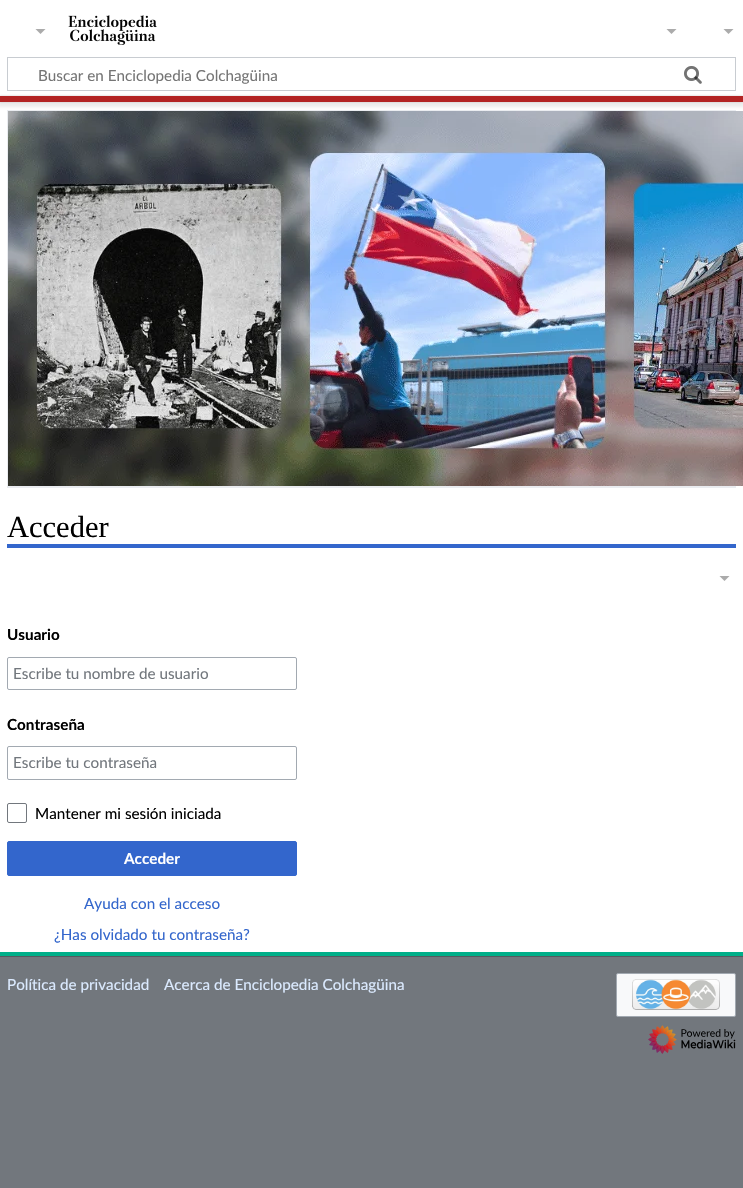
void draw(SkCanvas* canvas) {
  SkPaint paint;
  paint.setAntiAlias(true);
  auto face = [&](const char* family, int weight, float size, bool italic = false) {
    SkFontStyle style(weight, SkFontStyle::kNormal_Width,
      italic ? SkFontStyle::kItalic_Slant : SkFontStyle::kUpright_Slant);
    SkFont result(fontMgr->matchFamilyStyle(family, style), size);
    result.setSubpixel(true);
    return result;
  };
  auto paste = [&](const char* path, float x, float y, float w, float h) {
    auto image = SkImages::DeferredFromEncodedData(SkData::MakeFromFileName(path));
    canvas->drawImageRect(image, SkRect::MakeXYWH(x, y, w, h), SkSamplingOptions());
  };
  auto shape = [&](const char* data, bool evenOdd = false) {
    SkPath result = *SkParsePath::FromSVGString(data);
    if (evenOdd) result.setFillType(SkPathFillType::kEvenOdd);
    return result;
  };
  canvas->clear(0xff72777d);
  paint.setColor(0xffffffff);
  canvas->drawRect(SkRect::MakeXYWH(0, 0, 743, 96), paint);
  paste("img/1.png", 68, 15, 89, 30);
  paint.setColor(0xffababab);
  canvas->drawPath(shape("M733.5 29L728.5 34L723.5 29Z"), paint);
  paint.setStroke(true);
  paint.setStrokeWidth(1);
  paint.setColor(0xffc8ccd1);
  canvas->drawRect(SkRect::MakeXYWH(7.5f, 57.5f, 728, 33), paint);
  paste("img/2.png", 684, 66, 18, 18);
  paste("img/3.png", 684, 66, 18, 18);
  paint.setStroke(false);
  paint.setColor(0xffffffff);
  canvas->drawRect(SkRect::MakeXYWH(0, 102, 743, 850), paint);
  paint.setColor(0x33000000);
  paint.setMaskFilter(SkMaskFilter::MakeBlur(kNormal_SkBlurStyle, 1));
  canvas->drawRect(SkRect::MakeXYWH(0, 96, 743, 6), paint);
  paint.setMaskFilter(nullptr);
  {
    const struct { float x, y, w, h; SkColor color; } items[] = {
      {7, 110, 729, 1, 0xffeaecf0},
      {7, 486, 729, 2, 0xffeaecf0},
      {7, 110, 1, 378, 0xffeaecf0},
    };
    for (auto [x, y, w, h, color] : items) {
      paint.setColor(color);
      canvas->drawRect(SkRect::MakeXYWH(x, y, w, h), paint);
    }
  }
  paste("img/4.png", 8, 111, 735, 375);
  paint.setColor(0x12000000);
  paint.setMaskFilter(SkMaskFilter::MakeBlur(kNormal_SkBlurStyle, 1.5f));
  canvas->drawRect(SkRect::MakeXYWH(-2, 97, 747, 10), paint);
  paint.setMaskFilter(nullptr);
  paint.setColor(0xffb32424);
  canvas->drawRect(SkRect::MakeXYWH(0, 96, 743, 6), paint);
  paint.setColor(0xff00af89);
  canvas->drawRect(SkRect::MakeXYWH(0, 952, 743, 4), paint);
  paint.setColor(0xffababab);
  canvas->drawPath(shape("M45.5 29L40.5 34L35.5 29Z"), paint);
  canvas->drawPath(shape("M676.5 29L671.5 34L666.5 29Z"), paint);
  paint.setColor(0xff3366cc);
  canvas->drawRect(SkRect::MakeXYWH(7, 544, 729, 4), paint);
  paint.setColor(0xffababab);
  canvas->drawPath(shape("M729.5 576L724.5 581L719.5 576Z"), paint);
  paint.setStroke(true);
  paint.setColor(0xffa2a9b1);
  canvas->drawRoundRect(SkRect::MakeXYWH(7.5f, 657.5f, 289, 32), 1.5f, 1.5f, paint);
  canvas->drawRoundRect(SkRect::MakeXYWH(7.5f, 746.5f, 289, 33), 1.5f, 1.5f, paint);
  paint.setColor(0xff72777d);
  canvas->drawRoundRect(SkRect::MakeXYWH(7.5f, 803.5f, 19, 19), 1.5f, 1.5f, paint);
  paint.setStroke(false);
  paint.setColor(0xff3366cc);
  canvas->drawRoundRect(SkRect::MakeXYWH(7.5f, 841.5f, 289, 34), 1.5f, 1.5f, paint);
  paint.setStroke(true);
  canvas->drawRoundRect(SkRect::MakeXYWH(7.5f, 841.5f, 289, 34), 1.5f, 1.5f, paint);
  paint.setStroke(false);
  paint.setColor(0xff54595d);
  canvas->drawRect(SkRect::MakeXYWH(0, 956, 743, 1), paint);
  paint.setColor(0xfff8f9fa);
  canvas->drawRoundRect(SkRect::MakeXYWH(616.5f, 973.5f, 119, 43), 1.5f, 1.5f, paint);
  paint.setStroke(true);
  paint.setColor(0xffa2a9b1);
  canvas->drawRoundRect(SkRect::MakeXYWH(616.5f, 973.5f, 119, 43), 1.5f, 1.5f, paint);
  paste("img/5.png", 632, 979, 88, 31);
  paste("img/6.png", 648, 1025, 88, 29);
  auto f0 = face("Lato", 400, 15.25f);
  paint.setStroke(false);
  paint.setColor(0xff757575);
  canvas->drawString("Buscar en Enciclopedia Colchagüina", 38, 81, f0, paint);
  auto f1 = face("Liberation Serif", 400, 30.5f);
  paint.setColor(0xff000000);
  canvas->drawString("Acceder", 7, 537, f1, paint);
  auto f2 = face("Lato", 700, 15.25f);
  canvas->drawString("Usuario", 7, 640, f2, paint);
  paint.setColor(0xff72777d);
  canvas->drawString("Escribe tu nombre de usuario", 13, 679, f0, paint);
  paint.setColor(0xff000000);
  canvas->drawString("Contraseña", 7, 730, f2, paint);
  paint.setColor(0xff72777d);
  canvas->drawString("Escribe tu contraseña", 13, 768, f0, paint);
  paint.setColor(0xff000000);
  canvas->drawString("Mantener mi sesión iniciada", 35, 819, f0, paint);
  paint.setColor(0xffffffff);
  canvas->drawString("Acceder", 124, 864, f2, paint);
  paint.setColor(0xff3366cc);
  canvas->drawString("Ayuda con el acceso", 84, 909, f0, paint);
  canvas->drawString("¿Has olvidado tu contraseña?", 54, 940, f0, paint);
  paint.setColor(0xffdbeaff);
  canvas->drawString("Política de privacidad", 7, 990, f0, paint);
  canvas->drawString("Acerca de Enciclopedia Colchagüina", 164, 990, f0, paint);
}
